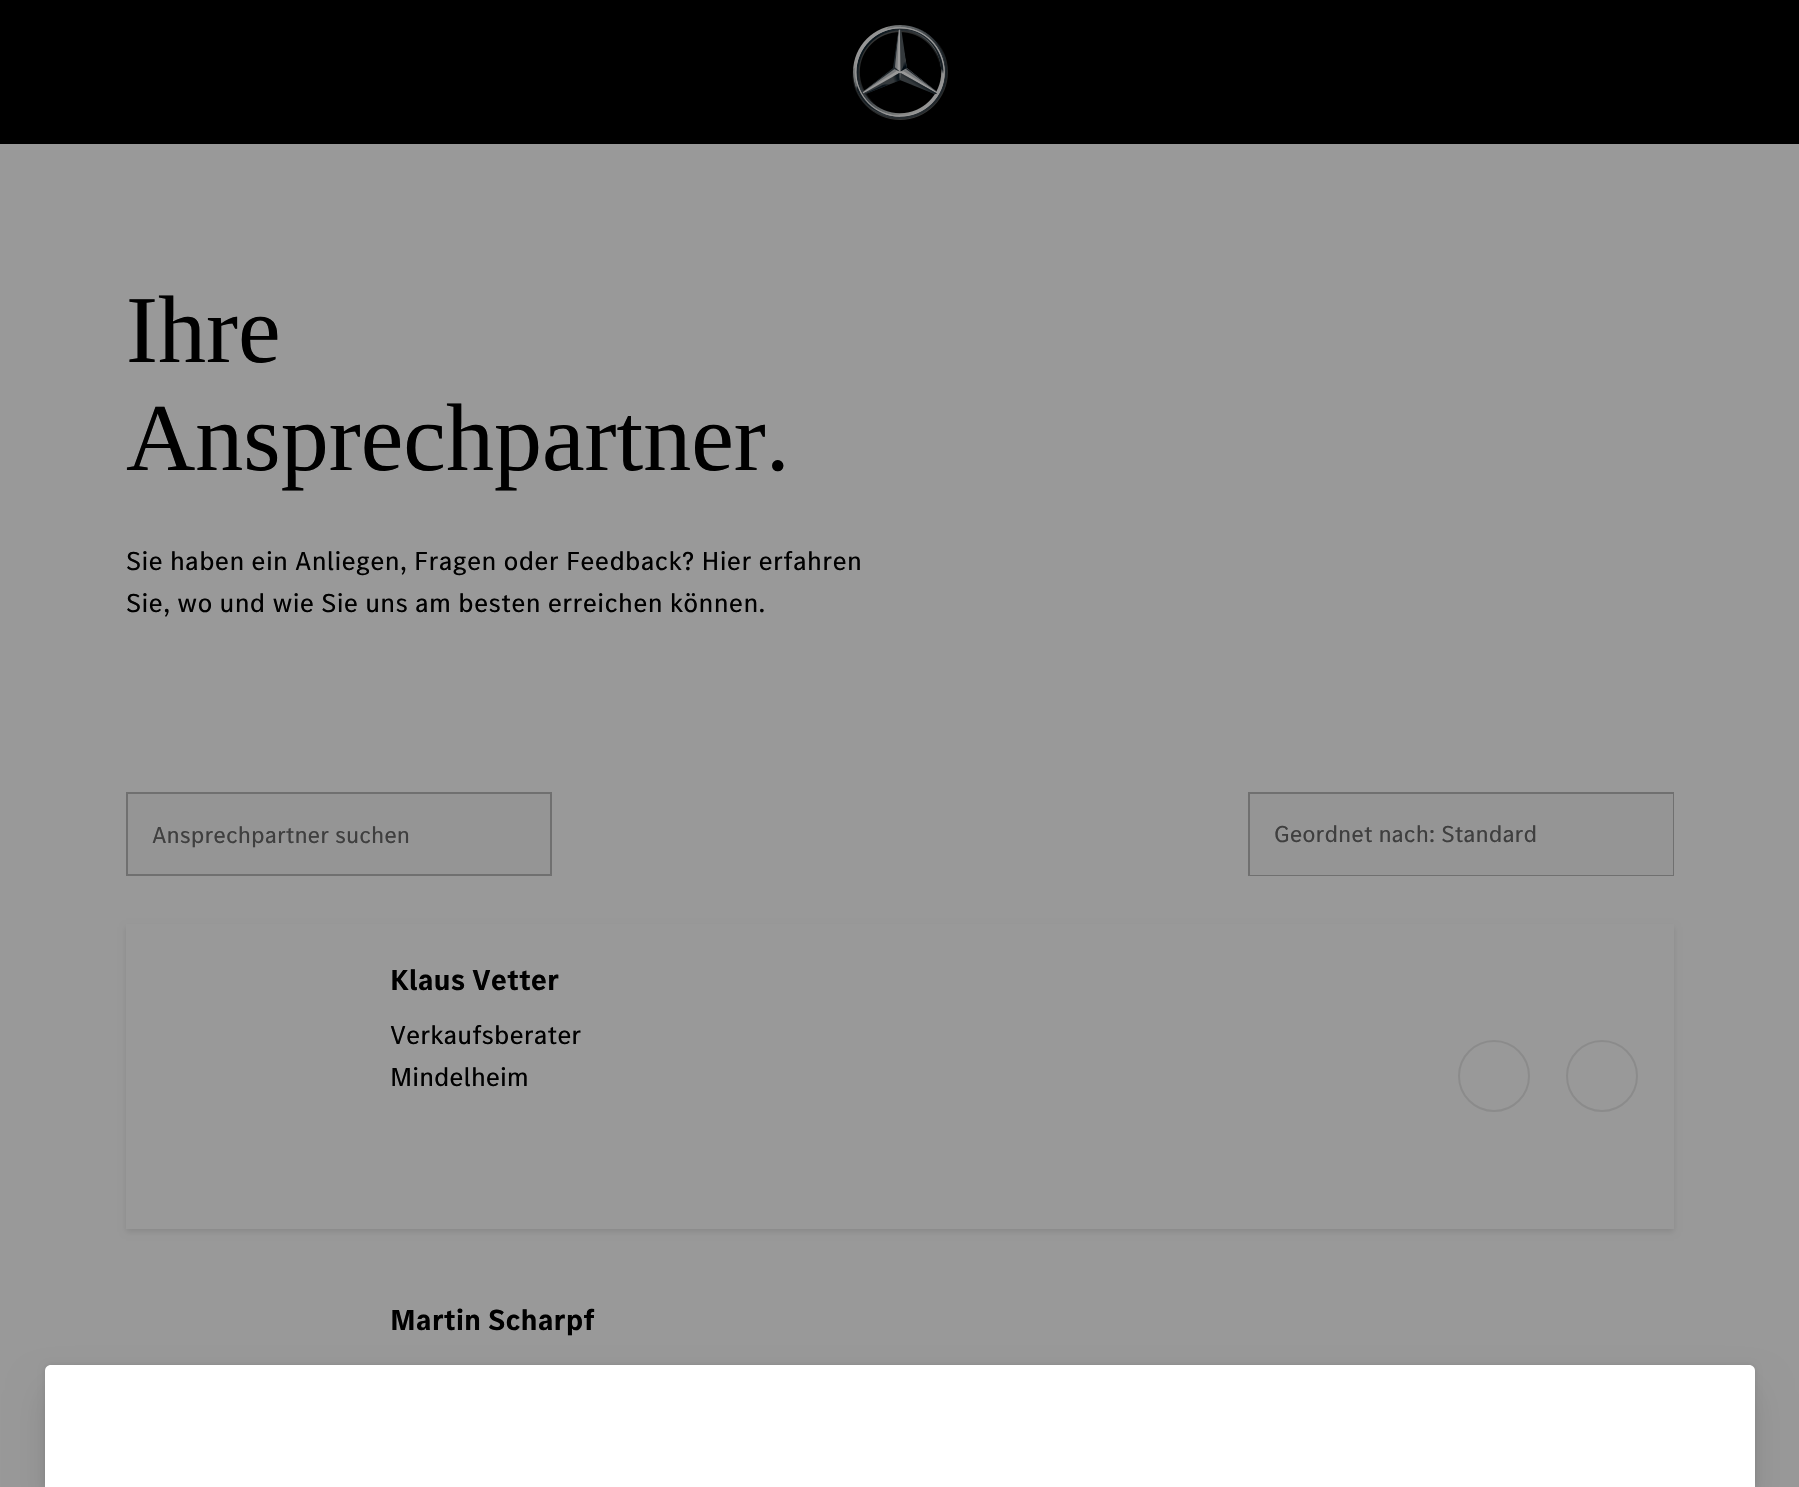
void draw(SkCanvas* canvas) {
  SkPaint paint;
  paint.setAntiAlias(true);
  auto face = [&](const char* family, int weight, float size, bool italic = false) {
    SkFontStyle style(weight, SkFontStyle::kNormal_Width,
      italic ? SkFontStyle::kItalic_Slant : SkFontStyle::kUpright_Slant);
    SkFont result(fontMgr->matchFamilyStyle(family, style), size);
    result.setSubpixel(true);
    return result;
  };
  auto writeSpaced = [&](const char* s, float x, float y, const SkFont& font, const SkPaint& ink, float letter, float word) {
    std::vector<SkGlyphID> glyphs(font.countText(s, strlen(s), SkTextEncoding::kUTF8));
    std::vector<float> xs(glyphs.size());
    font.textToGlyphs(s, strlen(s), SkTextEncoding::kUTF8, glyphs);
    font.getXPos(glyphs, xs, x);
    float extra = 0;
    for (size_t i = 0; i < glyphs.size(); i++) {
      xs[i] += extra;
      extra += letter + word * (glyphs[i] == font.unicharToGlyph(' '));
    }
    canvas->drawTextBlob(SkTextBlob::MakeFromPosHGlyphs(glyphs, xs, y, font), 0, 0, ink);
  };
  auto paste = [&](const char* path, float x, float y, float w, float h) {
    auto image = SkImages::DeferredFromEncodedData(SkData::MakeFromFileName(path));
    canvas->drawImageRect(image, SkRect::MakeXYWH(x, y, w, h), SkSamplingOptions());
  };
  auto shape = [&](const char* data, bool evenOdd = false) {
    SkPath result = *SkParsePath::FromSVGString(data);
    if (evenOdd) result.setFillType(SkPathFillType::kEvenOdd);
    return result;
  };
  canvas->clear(0xff999999);
  paint.setColor(0xff000000);
  canvas->drawRect(SkRect::MakeXYWH(0, 0, 1799, 144), paint);
  paste("img/1.png", 852, 25, 96, 95);
  paint.setColor(0xff959595);
  canvas->drawRect(SkRect::MakeXYWH(127, 793, 424, 82), paint);
  paint.setStroke(true);
  paint.setStrokeWidth(2);
  paint.setColor(0xff707070);
  canvas->drawRect(SkRect::MakeXYWH(127, 793, 424, 82), paint);
  canvas->drawRect(SkRect::MakeXYWH(1249, 793, 424, 82), paint);
  paint.setStroke(false);
  paint.setColor(0xff959595);
  canvas->drawRect(SkRect::MakeXYWH(1250, 794, 423, 81), paint);
  canvas->save();
  canvas->clipPath(shape("M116 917H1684V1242H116ZM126 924H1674V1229H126Z", true), true);
  paint.setColor(0x1a000000);
  paint.setMaskFilter(SkMaskFilter::MakeBlur(kNormal_SkBlurStyle, 3));
  canvas->drawRect(SkRect::MakeXYWH(126, 927, 1548, 305), paint);
  paint.setMaskFilter(nullptr);
  canvas->restore();
  paint.setStroke(true);
  paint.setColor(0xff8b8b8b);
  canvas->drawCircle(1494, 1076, 35, paint);
  canvas->drawCircle(1602, 1076, 35, paint);
  paint.setStroke(false);
  paint.setColor(0x1a000000);
  paint.setMaskFilter(SkMaskFilter::MakeBlur(kNormal_SkBlurStyle, 18));
  canvas->drawRoundRect(SkRect::MakeXYWH(45, 1389, 1710, 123), 6, 6, paint);
  paint.setMaskFilter(nullptr);
  paint.setMaskFilter(SkMaskFilter::MakeBlur(kNormal_SkBlurStyle, 3));
  canvas->drawRoundRect(SkRect::MakeXYWH(45, 1365, 1710, 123), 6, 6, paint);
  paint.setMaskFilter(nullptr);
  paint.setColor(0xffffffff);
  canvas->drawPath(shape("M51 1365H1749C1752.5 1365 1755 1367.5 1755 1371V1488H45V1371C45 1367.5 47.5 1365 51 1365Z"), paint);
  auto f0 = face("Liberation Serif", 400, 96);
  paint.setColor(0xff000000);
  canvas->drawString("Ihre", 126, 362, f0, paint);
  canvas->drawString("Ansprechpartner.", 126, 470, f0, paint);
  auto f1 = face("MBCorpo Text", 400, 27);
  writeSpaced("Sie haben ein Anliegen, Fragen oder Feedback? Hier erfahren", 126, 570, f1, paint, 0.3f, 0);
  writeSpaced("Sie, wo und wie Sie uns am besten erreichen können.", 126, 612, f1, paint, 0.3f, 0);
  auto f2 = face("MBCorpo Text", 400, 24);
  paint.setColor(0xff3f3f3f);
  canvas->drawString("Ansprechpartner suchen", 152, 843, f2, paint);
  canvas->drawString("Geordnet nach: Standard", 1274, 842, f2, paint);
  auto f3 = face("MBCorpo Text", 700, 30);
  paint.setColor(0xff000000);
  canvas->drawString("Klaus Vetter", 390, 990, f3, paint);
  canvas->drawString("Verkaufsberater", 390, 1044, f1, paint);
  canvas->drawString("Mindelheim", 390, 1086, f1, paint);
  canvas->drawString("Martin Scharpf", 390, 1330, f3, paint);
}
